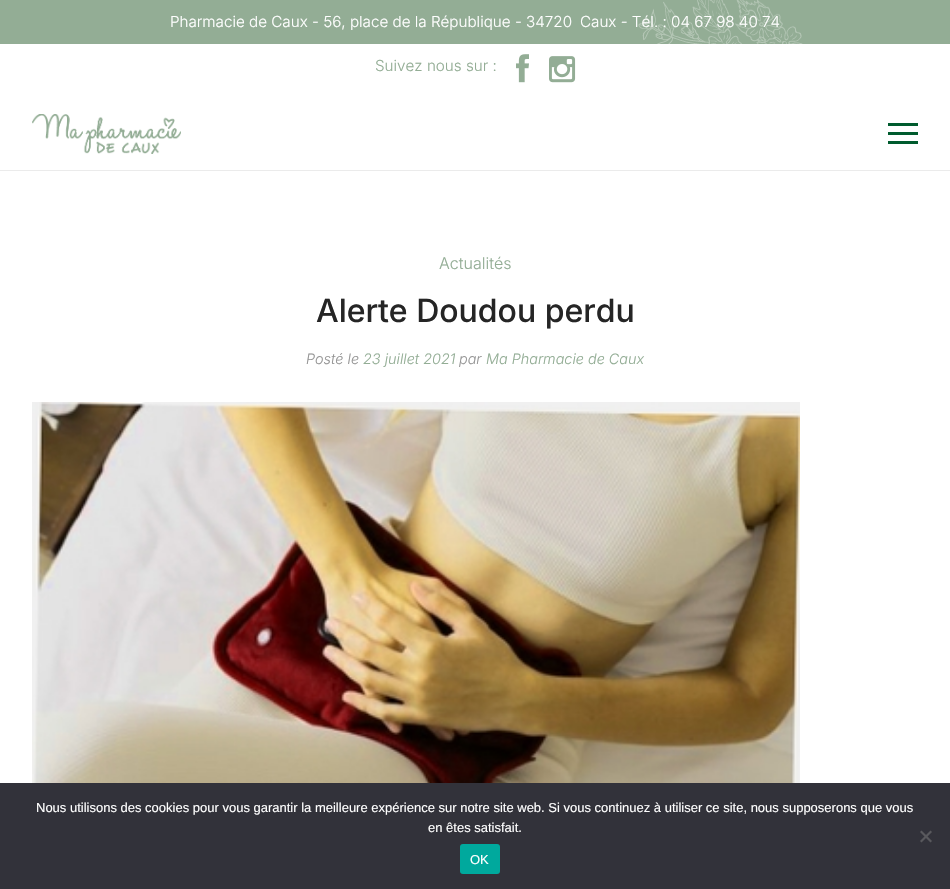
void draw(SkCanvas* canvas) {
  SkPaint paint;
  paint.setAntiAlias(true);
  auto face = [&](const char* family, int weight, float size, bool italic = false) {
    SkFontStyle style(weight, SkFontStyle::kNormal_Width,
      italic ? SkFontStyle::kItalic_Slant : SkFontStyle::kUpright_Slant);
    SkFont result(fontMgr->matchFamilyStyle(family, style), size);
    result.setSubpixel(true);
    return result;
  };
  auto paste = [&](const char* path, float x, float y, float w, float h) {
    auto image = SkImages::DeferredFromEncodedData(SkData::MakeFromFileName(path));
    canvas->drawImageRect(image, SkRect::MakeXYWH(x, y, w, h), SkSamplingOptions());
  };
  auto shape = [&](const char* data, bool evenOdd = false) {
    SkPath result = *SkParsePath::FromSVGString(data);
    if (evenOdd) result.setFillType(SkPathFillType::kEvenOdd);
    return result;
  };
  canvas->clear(0xffffffff);
  paint.setColor(0xff93ad95);
  canvas->drawRect(SkRect::MakeXYWH(0, 0, 950, 44), paint);
  paste("img/1.png", 638, 0, 165, 44);
  paste("img/2.png", 516, 54, 13, 29);
  paste("img/3.png", 549, 56, 27, 27);
  paint.setColor(0xffebebeb);
  canvas->drawRect(SkRect::MakeXYWH(0, 170, 950, 1), paint);
  paste("img/4.png", 32, 114, 149, 40);
  {
    const struct { float x, y, w, h; SkColor color; } items[] = {
      {888, 123, 30, 3, 0xff005b2e},
      {888, 132, 30, 3, 0xff005b2e},
      {888, 141, 30, 3, 0xff005b2e},
    };
    for (auto [x, y, w, h, color] : items) {
      paint.setColor(color);
      canvas->drawRect(SkRect::MakeXYWH(x, y, w, h), paint);
    }
  }
  paste("img/5.png", 32, 402, 768, 381);
  paint.setColor(0xff32323a);
  canvas->drawRect(SkRect::MakeXYWH(0, 783, 950, 106), paint);
  paint.setColor(0xff59595d);
  canvas->drawPath(shape("M930.5 830.5L932 832L921.5 842.5L920 841Z"), paint);
  canvas->drawPath(shape("M920 832L921.5 830.5L932 841L930.5 842.5Z"), paint);
  paint.setColor(0xff00a99d);
  canvas->drawRoundRect(SkRect::MakeXYWH(460, 844, 40, 30), 3, 3, paint);
  auto f0 = face("Inter", 300, 15.2f);
  paint.setColor(0xffffffff);
  canvas->drawString("Pharmacie de Caux - 56, place de la République - 34720", 170, 27, f0, paint);
  canvas->drawString("Caux - Tél. : 04 67 98 40 74", 580, 27, f0, paint);
  paint.setColor(0xff93ad95);
  canvas->drawString("Suivez nous sur :", 375, 71, f0, paint);
  auto f1 = face("Inter", 300, 16);
  canvas->drawString("Actualités", 439, 269, f1, paint);
  auto f2 = face("Inter", 500, 32);
  paint.setColor(0xff252525);
  canvas->drawString("Alerte Doudou perdu", 316, 322, f2, paint);
  auto f3 = face("Inter", 300, 14.4f, true);
  paint.setColor(0xff959595);
  canvas->drawString("Posté le", 306, 364, f3, paint);
  paint.setColor(0xff93ad95);
  canvas->drawString("23 juillet 2021", 363, 364, f3, paint);
  paint.setColor(0xff959595);
  canvas->drawString("par", 459, 364, f3, paint);
  paint.setColor(0xff93ad95);
  canvas->drawString("Ma Pharmacie de Caux", 486, 364, f3, paint);
  auto f4 = face("Liberation Sans", 400, 13);
  paint.setColor(0xffffffff);
  {
    const struct { const char* s; float x, y; } items[] = {
      {"Nous utilisons des cookies pour vous garantir la meilleure expérience sur notre site web. Si vous continuez à utiliser ce site, nous supposerons que vous", 36, 812},
      {"en êtes satisfait.", 428, 832},
      {"OK", 470, 864},
    };
    for (auto [s, x, y] : items) {
      canvas->drawString(s, x, y, f4, paint);
    }
  }
}
